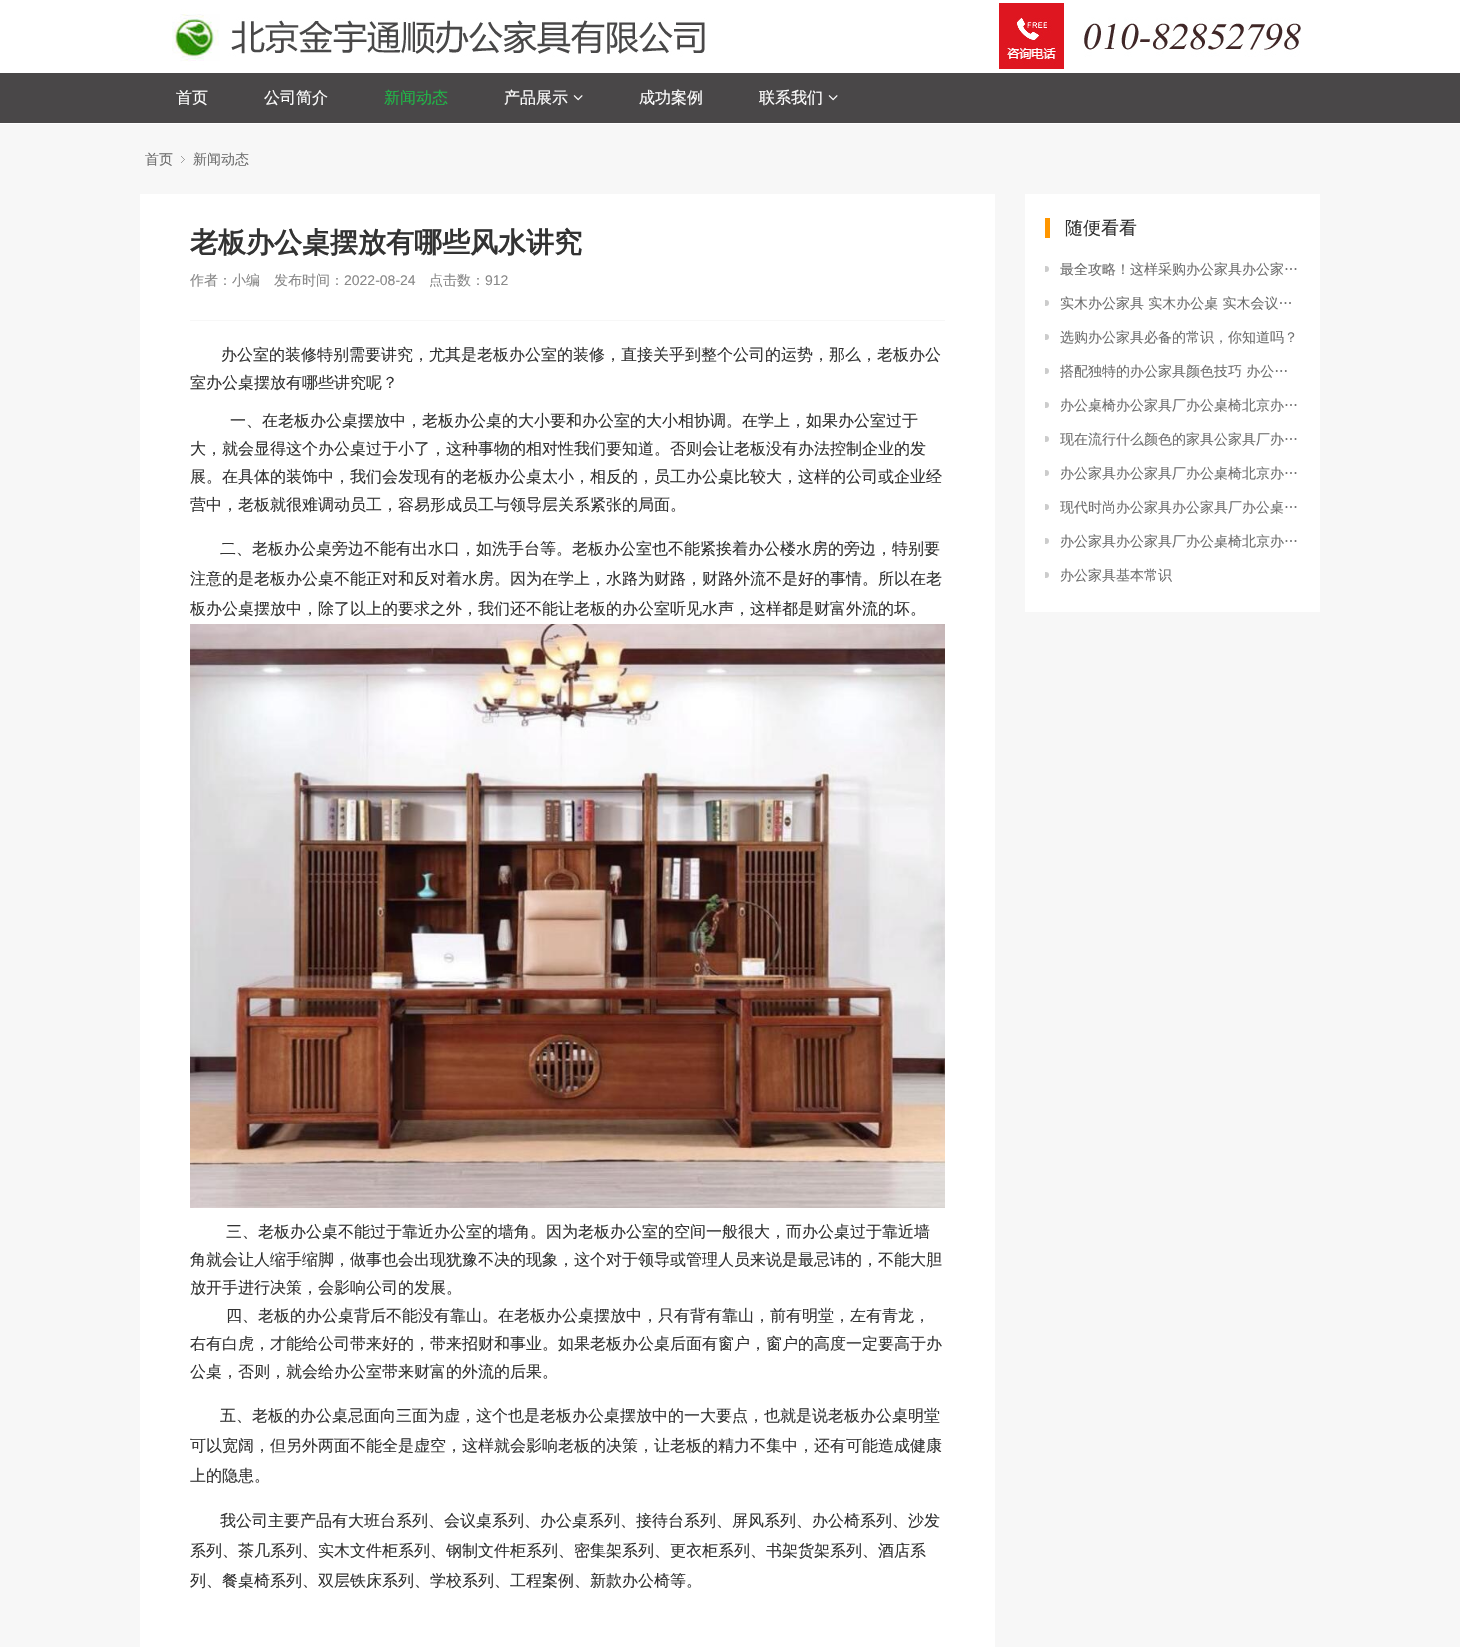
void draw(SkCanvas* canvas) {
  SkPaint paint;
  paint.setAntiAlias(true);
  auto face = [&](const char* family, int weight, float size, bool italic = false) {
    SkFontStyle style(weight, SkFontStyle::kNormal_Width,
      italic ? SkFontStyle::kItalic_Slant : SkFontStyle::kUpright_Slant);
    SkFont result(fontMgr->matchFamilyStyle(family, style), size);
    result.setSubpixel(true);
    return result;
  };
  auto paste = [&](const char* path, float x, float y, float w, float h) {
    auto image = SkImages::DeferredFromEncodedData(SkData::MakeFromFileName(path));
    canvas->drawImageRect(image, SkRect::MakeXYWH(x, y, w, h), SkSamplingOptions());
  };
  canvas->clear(0xffffffff);
  paint.setColor(0xff494748);
  canvas->drawRect(SkRect::MakeXYWH(0, 73, 1460, 50), paint);
  paste("img/1.png", 172, 3, 1129, 66);
  paste("img/2.png", 573, 95, 10, 6);
  paste("img/2.png", 828, 95, 10, 6);
  paint.setColor(0xfff7f7f7);
  canvas->drawRect(SkRect::MakeXYWH(0, 124, 1460, 1523), paint);
  paste("img/3.png", 181, 156, 4, 7);
  paint.setColor(0xffffffff);
  canvas->drawRect(SkRect::MakeXYWH(140, 194, 855, 1453), paint);
  paint.setColor(0xfff7f7f7);
  canvas->drawRect(SkRect::MakeXYWH(190, 320, 755, 1), paint);
  paste("img/4.png", 190, 624, 755, 584);
  paint.setColor(0xffffffff);
  canvas->drawRect(SkRect::MakeXYWH(1025, 194, 295, 418), paint);
  paint.setColor(0xffff9600);
  canvas->drawRect(SkRect::MakeXYWH(1045, 218, 5, 20), paint);
  canvas->save();
  canvas->clipRect(SkRect::MakeXYWH(1045, 257, 255, 24));
  paint.setColor(0xffcccccc);
  canvas->drawCircle(1046, 269, 3, paint);
  canvas->restore();
  canvas->save();
  canvas->clipRect(SkRect::MakeXYWH(1045, 291, 255, 24));
  canvas->drawCircle(1046, 303, 3, paint);
  canvas->restore();
  canvas->save();
  canvas->clipRect(SkRect::MakeXYWH(1045, 325, 255, 24));
  canvas->drawCircle(1046, 337, 3, paint);
  canvas->restore();
  canvas->save();
  canvas->clipRect(SkRect::MakeXYWH(1045, 359, 255, 24));
  canvas->drawCircle(1046, 371, 3, paint);
  canvas->restore();
  canvas->save();
  canvas->clipRect(SkRect::MakeXYWH(1045, 393, 255, 24));
  canvas->drawCircle(1046, 405, 3, paint);
  canvas->restore();
  canvas->save();
  canvas->clipRect(SkRect::MakeXYWH(1045, 427, 255, 24));
  canvas->drawCircle(1046, 439, 3, paint);
  canvas->restore();
  canvas->save();
  canvas->clipRect(SkRect::MakeXYWH(1045, 461, 255, 24));
  canvas->drawCircle(1046, 473, 3, paint);
  canvas->restore();
  canvas->save();
  canvas->clipRect(SkRect::MakeXYWH(1045, 495, 255, 24));
  canvas->drawCircle(1046, 507, 3, paint);
  canvas->restore();
  canvas->save();
  canvas->clipRect(SkRect::MakeXYWH(1045, 529, 255, 24));
  canvas->drawCircle(1046, 541, 3, paint);
  canvas->restore();
  canvas->save();
  canvas->clipRect(SkRect::MakeXYWH(1045, 563, 255, 24));
  canvas->drawCircle(1046, 575, 3, paint);
  canvas->restore();
  auto f0 = face("WenQuanYi Zen Hei", 500, 16);
  paint.setColor(0xffffffff);
  canvas->drawString("首页", 176, 103, f0, paint);
  canvas->drawString("公司简介", 264, 103, f0, paint);
  paint.setColor(0xff20b647);
  canvas->drawString("新闻动态", 384, 103, f0, paint);
  paint.setColor(0xffffffff);
  {
    const struct { const char* s; float x, y; } items[] = {
      {"产品展示", 504, 103},
      {"成功案例", 639, 103},
      {"联系我们", 759, 103},
    };
    for (auto [s, x, y] : items) {
      canvas->drawString(s, x, y, f0, paint);
    }
  }
  auto f1 = face("WenQuanYi Zen Hei", 500, 14);
  paint.setColor(0xff6e6e6e);
  canvas->drawString("首页", 145, 164, f1, paint);
  canvas->drawString("新闻动态", 193, 164, f1, paint);
  auto f2 = face("WenQuanYi Zen Hei", 700, 28);
  paint.setColor(0xff333333);
  canvas->drawString("老板办公桌摆放有哪些风水讲究", 190, 252, f2, paint);
  paint.setColor(0xff888888);
  canvas->drawString("作者：小编", 190, 285, f1, paint);
  canvas->drawString("发布时间：", 274, 285, f1, paint);
  auto f3 = face("Liberation Sans", 400, 14);
  canvas->drawString("2022-08-24", 344, 285, f3, paint);
  canvas->drawString("点击数：", 429, 285, f1, paint);
  canvas->drawString("912", 485, 285, f3, paint);
  paint.setColor(0xff333333);
  {
    const struct { const char* s; float x, y; } items[] = {
      {"办公室的装修特别需要讲究，尤其是老板办公室的装修，直接关乎到整个公司的运势，那么，老板办公", 221, 360},
      {"室办公桌摆放有哪些讲究呢？", 190, 388},
      {"一、在老板办公桌摆放中，老板办公桌的大小要和办公室的大小相协调。在学上，如果办公室过于", 230, 426},
      {"大，就会显得这个办公桌过于小了，这种事物的相对性我们要知道。否则会让老板没有办法控制企业的发", 190, 454},
      {"展。在具体的装饰中，我们会发现有的老板办公桌太小，相反的，员工办公桌比较大，这样的公司或企业经", 190, 482},
      {"营中，老板就很难调动员工，容易形成员工与领导层关系紧张的局面。", 190, 510},
      {"二、老板办公桌旁边不能有出水口，如洗手台等。老板办公室也不能紧挨着办公楼水房的旁边，特别要", 220, 554},
      {"注意的是老板办公桌不能正对和反对着水房。因为在学上，水路为财路，财路外流不是好的事情。所以在老", 190, 584},
      {"板办公桌摆放中，除了以上的要求之外，我们还不能让老板的办公室听见水声，这样都是财富外流的坏。", 190, 614},
      {"三、老板办公桌不能过于靠近办公室的墙角。因为老板办公室的空间一般很大，而办公桌过于靠近墙", 226, 1237},
      {"角就会让人缩手缩脚，做事也会出现犹豫不决的现象，这个对于领导或管理人员来说是最忌讳的，不能大胆", 190, 1265},
      {"放开手进行决策，会影响公司的发展。", 190, 1293},
      {"四、老板的办公桌背后不能没有靠山。在老板办公桌摆放中，只有背有靠山，前有明堂，左有青龙，", 226, 1321},
      {"右有白虎，才能给公司带来好的，带来招财和事业。如果老板办公桌后面有窗户，窗户的高度一定要高于办", 190, 1349},
      {"公桌，否则，就会给办公室带来财富的外流的后果。", 190, 1377},
      {"五、老板的办公桌忌面向三面为虚，这个也是老板办公桌摆放中的一大要点，也就是说老板办公桌明堂", 220, 1421},
      {"可以宽阔，但另外两面不能全是虚空，这样就会影响老板的决策，让老板的精力不集中，还有可能造成健康", 190, 1451},
      {"上的隐患。", 190, 1481},
      {"我公司主要产品有大班台系列、会议桌系列、办公桌系列、接待台系列、屏风系列、办公椅系列、沙发", 220, 1526},
      {"系列、茶几系列、实木文件柜系列、钢制文件柜系列、密集架系列、更衣柜系列、书架货架系列、酒店系", 190, 1556},
      {"列、餐桌椅系列、双层铁床系列、学校系列、工程案例、新款办公椅等。", 190, 1586},
    };
    for (auto [s, x, y] : items) {
      canvas->drawString(s, x, y, f0, paint);
    }
  }
  auto f4 = face("WenQuanYi Zen Hei", 500, 18);
  canvas->drawString("随便看看", 1065, 234, f4, paint);
  paint.setColor(0xff6e6e6e);
  {
    const struct { const char* s; float x, y; } items[] = {
      {"最全攻略！这样采购办公家具办公家…", 1060, 274},
      {"实木办公家具 实木办公桌 实木会议…", 1060, 308},
      {"选购办公家具必备的常识，你知道吗？", 1060, 342},
      {"搭配独特的办公家具颜色技巧 办公…", 1060, 376},
      {"办公桌椅办公家具厂办公桌椅北京办…", 1060, 410},
      {"现在流行什么颜色的家具公家具厂办…", 1060, 444},
      {"办公家具办公家具厂办公桌椅北京办…", 1060, 478},
      {"现代时尚办公家具办公家具厂办公桌…", 1060, 512},
      {"办公家具办公家具厂办公桌椅北京办…", 1060, 546},
      {"办公家具基本常识", 1060, 580},
    };
    for (auto [s, x, y] : items) {
      canvas->drawString(s, x, y, f1, paint);
    }
  }
}
